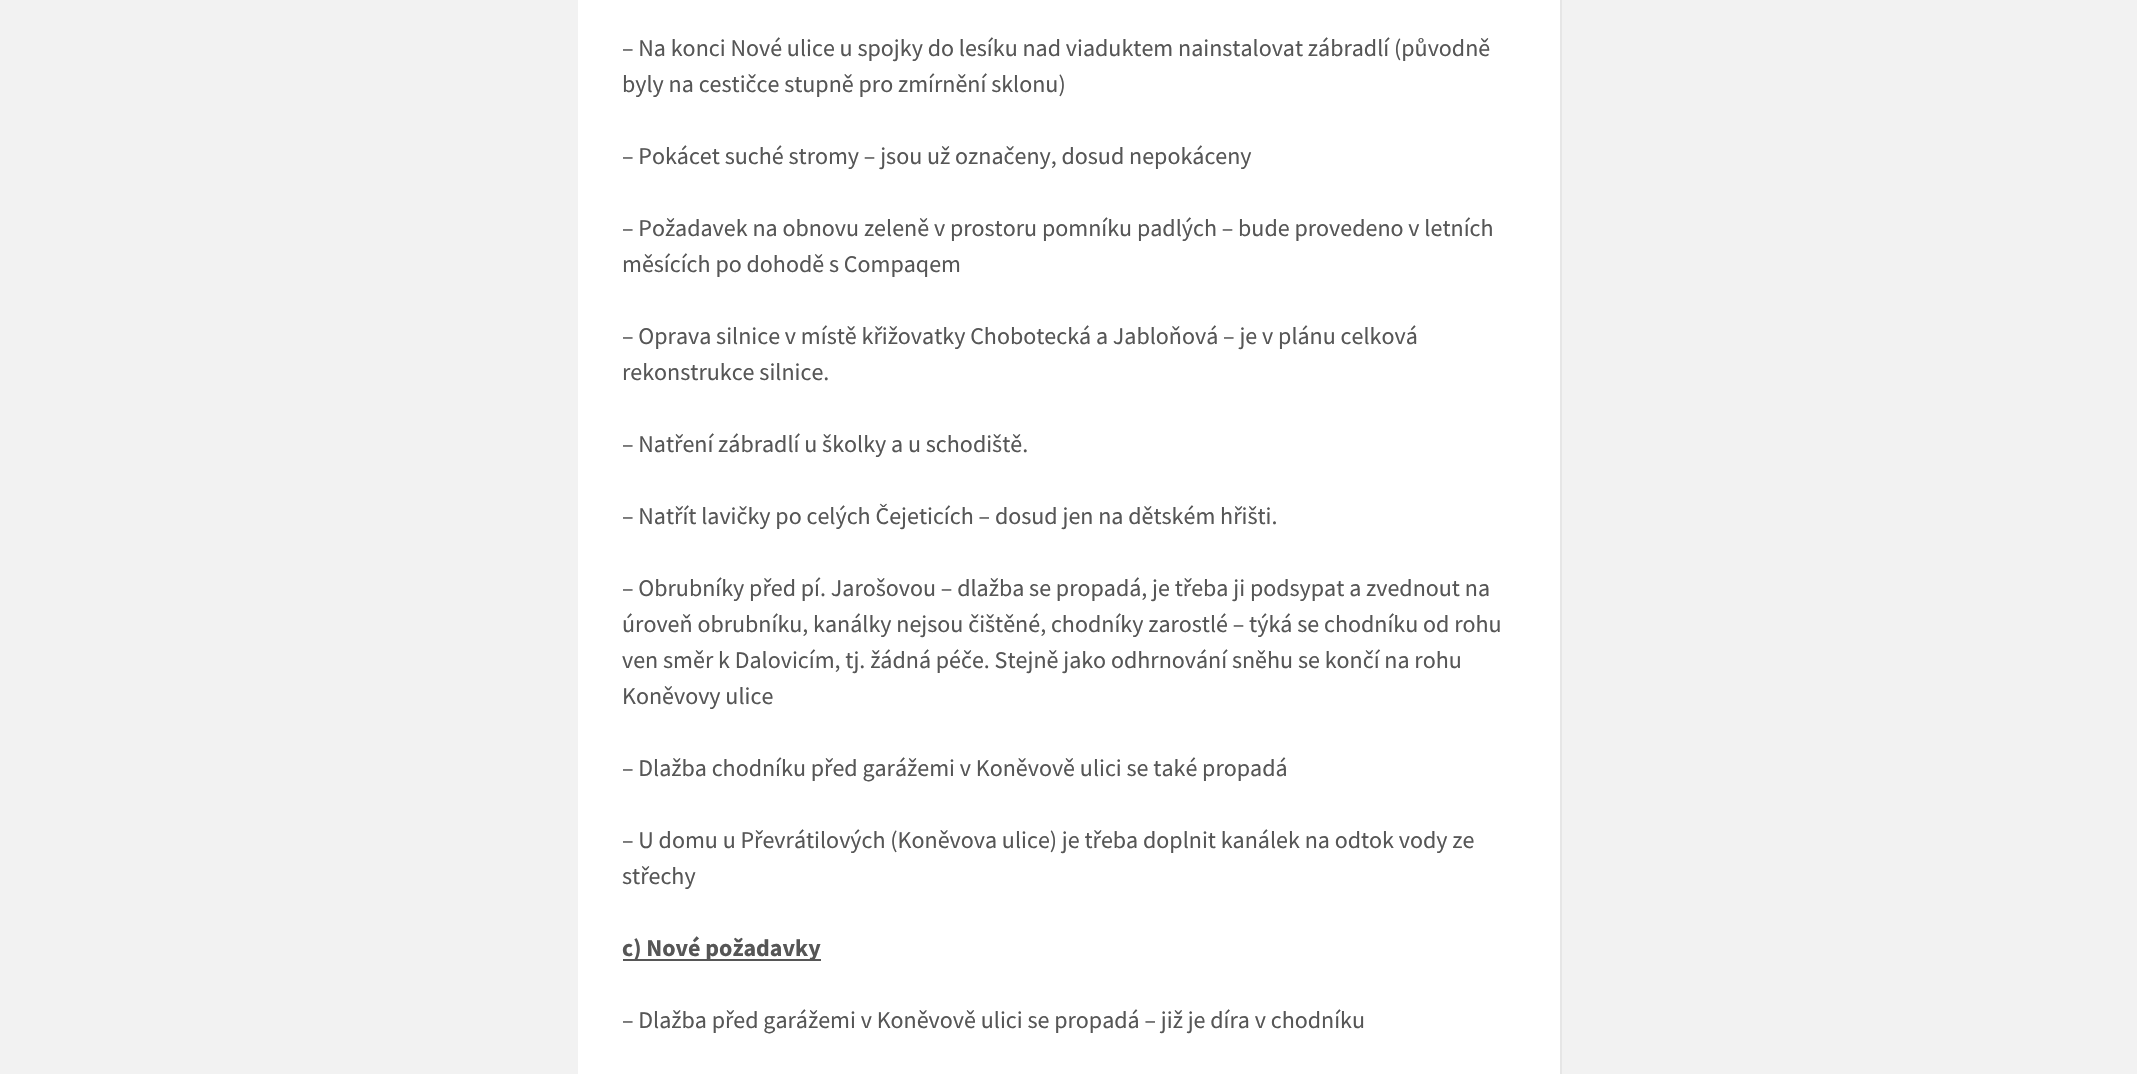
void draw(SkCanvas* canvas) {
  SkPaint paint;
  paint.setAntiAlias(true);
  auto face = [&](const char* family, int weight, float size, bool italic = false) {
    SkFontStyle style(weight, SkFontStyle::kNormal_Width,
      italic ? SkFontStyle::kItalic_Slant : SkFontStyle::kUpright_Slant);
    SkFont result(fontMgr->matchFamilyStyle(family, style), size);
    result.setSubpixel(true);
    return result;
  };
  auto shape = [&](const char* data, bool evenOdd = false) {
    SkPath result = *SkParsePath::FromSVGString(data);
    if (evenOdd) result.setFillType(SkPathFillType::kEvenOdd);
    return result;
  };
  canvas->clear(0xfff2f2f2);
  paint.setColor(0xffe6e6e6);
  canvas->drawPath(shape("M579 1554V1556H1562V-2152H1560V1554Z"), paint);
  paint.setColor(0xffffffff);
  canvas->drawRect(SkRect::MakeXYWH(578, 0, 982, 1074), paint);
  paint.setColor(0xff565656);
  canvas->drawRect(SkRect::MakeXYWH(623, 959, 198, 2), paint);
  auto f0 = face("Source Sans Pro", 400, 24);
  {
    const struct { const char* s; float x, y; } items[] = {
      {"– Na konci Nové ulice u spojky do lesíku nad viaduktem nainstalovat zábradlí (původně", 622, 56},
      {"byly na cestičce stupně pro zmírnění sklonu)", 622, 92},
      {"– Pokácet suché stromy – jsou už označeny, dosud nepokáceny", 622, 164},
      {"– Požadavek na obnovu zeleně v prostoru pomníku padlých – bude provedeno v letních", 622, 236},
      {"měsících po dohodě s Compaqem", 622, 272},
      {"– Oprava silnice v místě křižovatky Chobotecká a Jabloňová – je v plánu celková", 622, 344},
      {"rekonstrukce silnice.", 622, 380},
      {"– Natření zábradlí u školky a u schodiště.", 622, 452},
      {"– Natřít lavičky po celých Čejeticích – dosud jen na dětském hřišti.", 622, 524},
      {"– Obrubníky před pí. Jarošovou – dlažba se propadá, je třeba ji podsypat a zvednout na", 622, 596},
      {"úroveň obrubníku, kanálky nejsou čištěné, chodníky zarostlé – týká se chodníku od rohu", 622, 632},
      {"ven směr k Dalovicím, tj. žádná péče. Stejně jako odhrnování sněhu se končí na rohu", 622, 668},
      {"Koněvovy ulice", 622, 704},
      {"– Dlažba chodníku před garážemi v Koněvově ulici se také propadá", 622, 776},
      {"– U domu u Převrátilových (Koněvova ulice) je třeba doplnit kanálek na odtok vody ze", 622, 848},
      {"střechy", 622, 884},
    };
    for (auto [s, x, y] : items) {
      canvas->drawString(s, x, y, f0, paint);
    }
  }
  auto f1 = face("Source Sans Pro", 700, 24);
  canvas->drawString("c) Nové požadavky", 622, 956, f1, paint);
  canvas->drawString("– Dlažba před garážemi v Koněvově ulici se propadá – již je díra v chodníku", 622, 1028, f0, paint);
}
